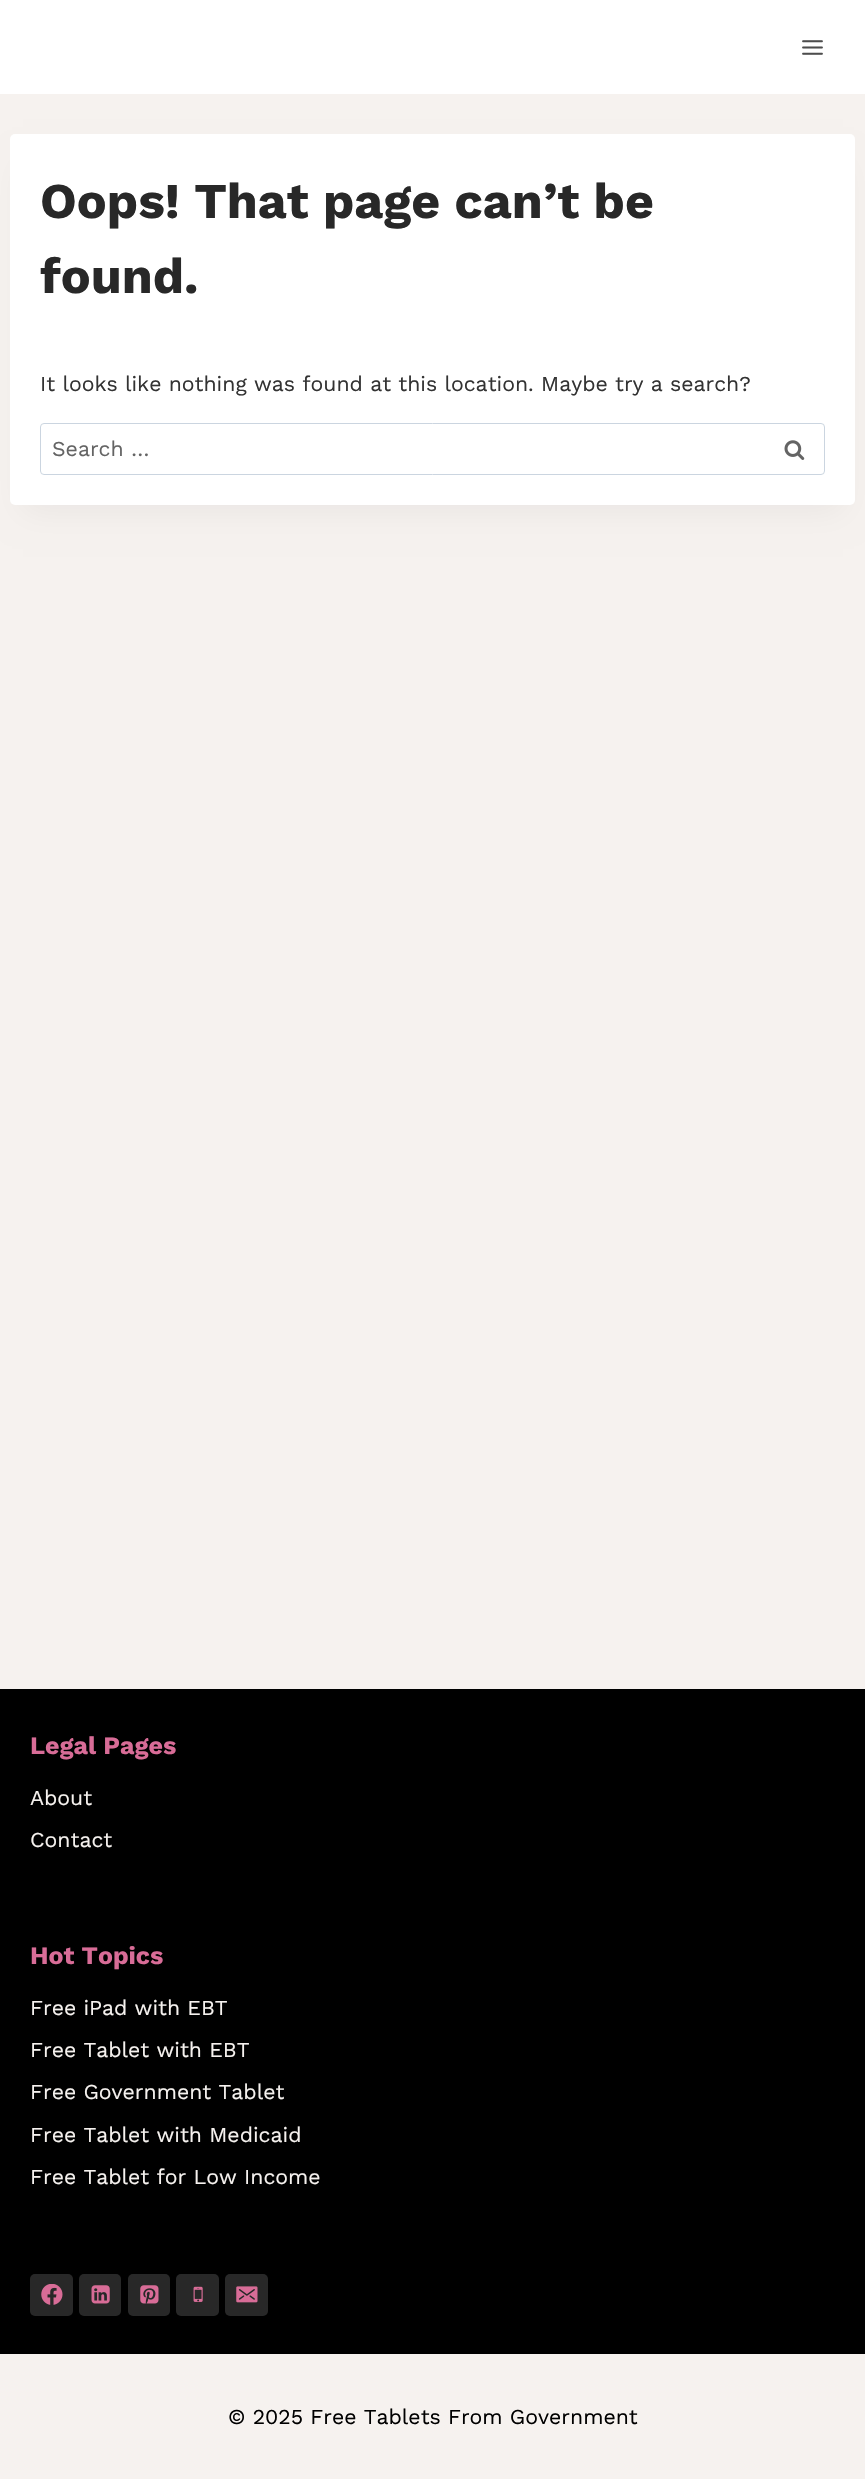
void draw(SkCanvas* canvas) {
  SkPaint paint;
  paint.setAntiAlias(true);
  auto face = [&](const char* family, int weight, float size, bool italic = false) {
    SkFontStyle style(weight, SkFontStyle::kNormal_Width,
      italic ? SkFontStyle::kItalic_Slant : SkFontStyle::kUpright_Slant);
    SkFont result(fontMgr->matchFamilyStyle(family, style), size);
    result.setSubpixel(true);
    return result;
  };
  auto paste = [&](const char* path, float x, float y, float w, float h) {
    auto image = SkImages::DeferredFromEncodedData(SkData::MakeFromFileName(path));
    canvas->drawImageRect(image, SkRect::MakeXYWH(x, y, w, h), SkSamplingOptions());
  };
  canvas->clear(0xfff6f2ef);
  paint.setColor(0xffffffff);
  canvas->drawRect(SkRect::MakeXYWH(0, 0, 865, 94), paint);
  paste("img/1.png", 802, 40, 21, 15);
  paint.setColor(0x0d000000);
  paint.setMaskFilter(SkMaskFilter::MakeBlur(kNormal_SkBlurStyle, 15.5f));
  canvas->drawRect(SkRect::MakeXYWH(23, 165, 820, 346), paint);
  paint.setMaskFilter(nullptr);
  paint.setColor(0xffffffff);
  canvas->drawRoundRect(SkRect::MakeXYWH(10, 134, 845, 371), 5, 5, paint);
  paint.setStroke(true);
  paint.setStrokeWidth(1);
  paint.setColor(0xffcbd5e0);
  canvas->drawRoundRect(SkRect::MakeXYWH(40.5f, 423.5f, 784, 51), 3.5f, 3.5f, paint);
  paste("img/2.png", 784, 440, 21, 20);
  paint.setStroke(false);
  paint.setColor(0xff000000);
  canvas->drawRect(SkRect::MakeXYWH(0, 1689, 865, 665), paint);
  paint.setColor(0xff282828);
  canvas->drawRoundRect(SkRect::MakeXYWH(30, 2274, 43, 42), 5, 5, paint);
  paste("img/3.png", 41, 2284, 22, 21);
  canvas->drawRoundRect(SkRect::MakeXYWH(79, 2274, 42, 42), 5, 5, paint);
  paste("img/4.png", 91, 2285, 19, 19);
  canvas->drawRoundRect(SkRect::MakeXYWH(128, 2274, 42, 42), 5, 5, paint);
  paste("img/5.png", 140, 2285, 19, 19);
  canvas->drawRoundRect(SkRect::MakeXYWH(176, 2274, 43, 42), 5, 5, paint);
  paste("img/6.png", 193, 2286, 10, 16);
  canvas->drawRoundRect(SkRect::MakeXYWH(225, 2274, 43, 42), 5, 5, paint);
  paste("img/7.png", 236, 2286, 22, 17);
  auto f0 = face("Work Sans", 700, 50);
  canvas->drawString("Oops! That page can’t be", 40, 218, f0, paint);
  canvas->drawString("found.", 40, 293, f0, paint);
  auto f1 = face("Work Sans", 400, 21.25f);
  paint.setColor(0xff333333);
  canvas->drawString("It looks like nothing was found at this location. Maybe try a search?", 40, 391, f1, paint);
  paint.setColor(0xff646464);
  canvas->drawString("Search …", 52, 456, f1, paint);
  auto f2 = face("Work Sans", 700, 25);
  paint.setColor(0xffd86c97);
  canvas->drawString("Legal Pages", 30, 1754, f2, paint);
  paint.setColor(0xfff6f2ef);
  canvas->drawString("About", 30, 1805, f1, paint);
  canvas->drawString("Contact", 30, 1847, f1, paint);
  paint.setColor(0xffd86c97);
  canvas->drawString("Hot Topics", 30, 1964, f2, paint);
  paint.setColor(0xfff6f2ef);
  {
    const struct { const char* s; float x, y; } items[] = {
      {"Free iPad with EBT", 30, 2015},
      {"Free Tablet with EBT", 30, 2057},
      {"Free Government Tablet", 30, 2099},
      {"Free Tablet with Medicaid", 30, 2142},
      {"Free Tablet for Low Income", 30, 2184},
    };
    for (auto [s, x, y] : items) {
      canvas->drawString(s, x, y, f1, paint);
    }
  }
  paint.setColor(0xff000000);
  canvas->drawString("© 2025 Free Tablets From Government", 228, 2424, f1, paint);
}
